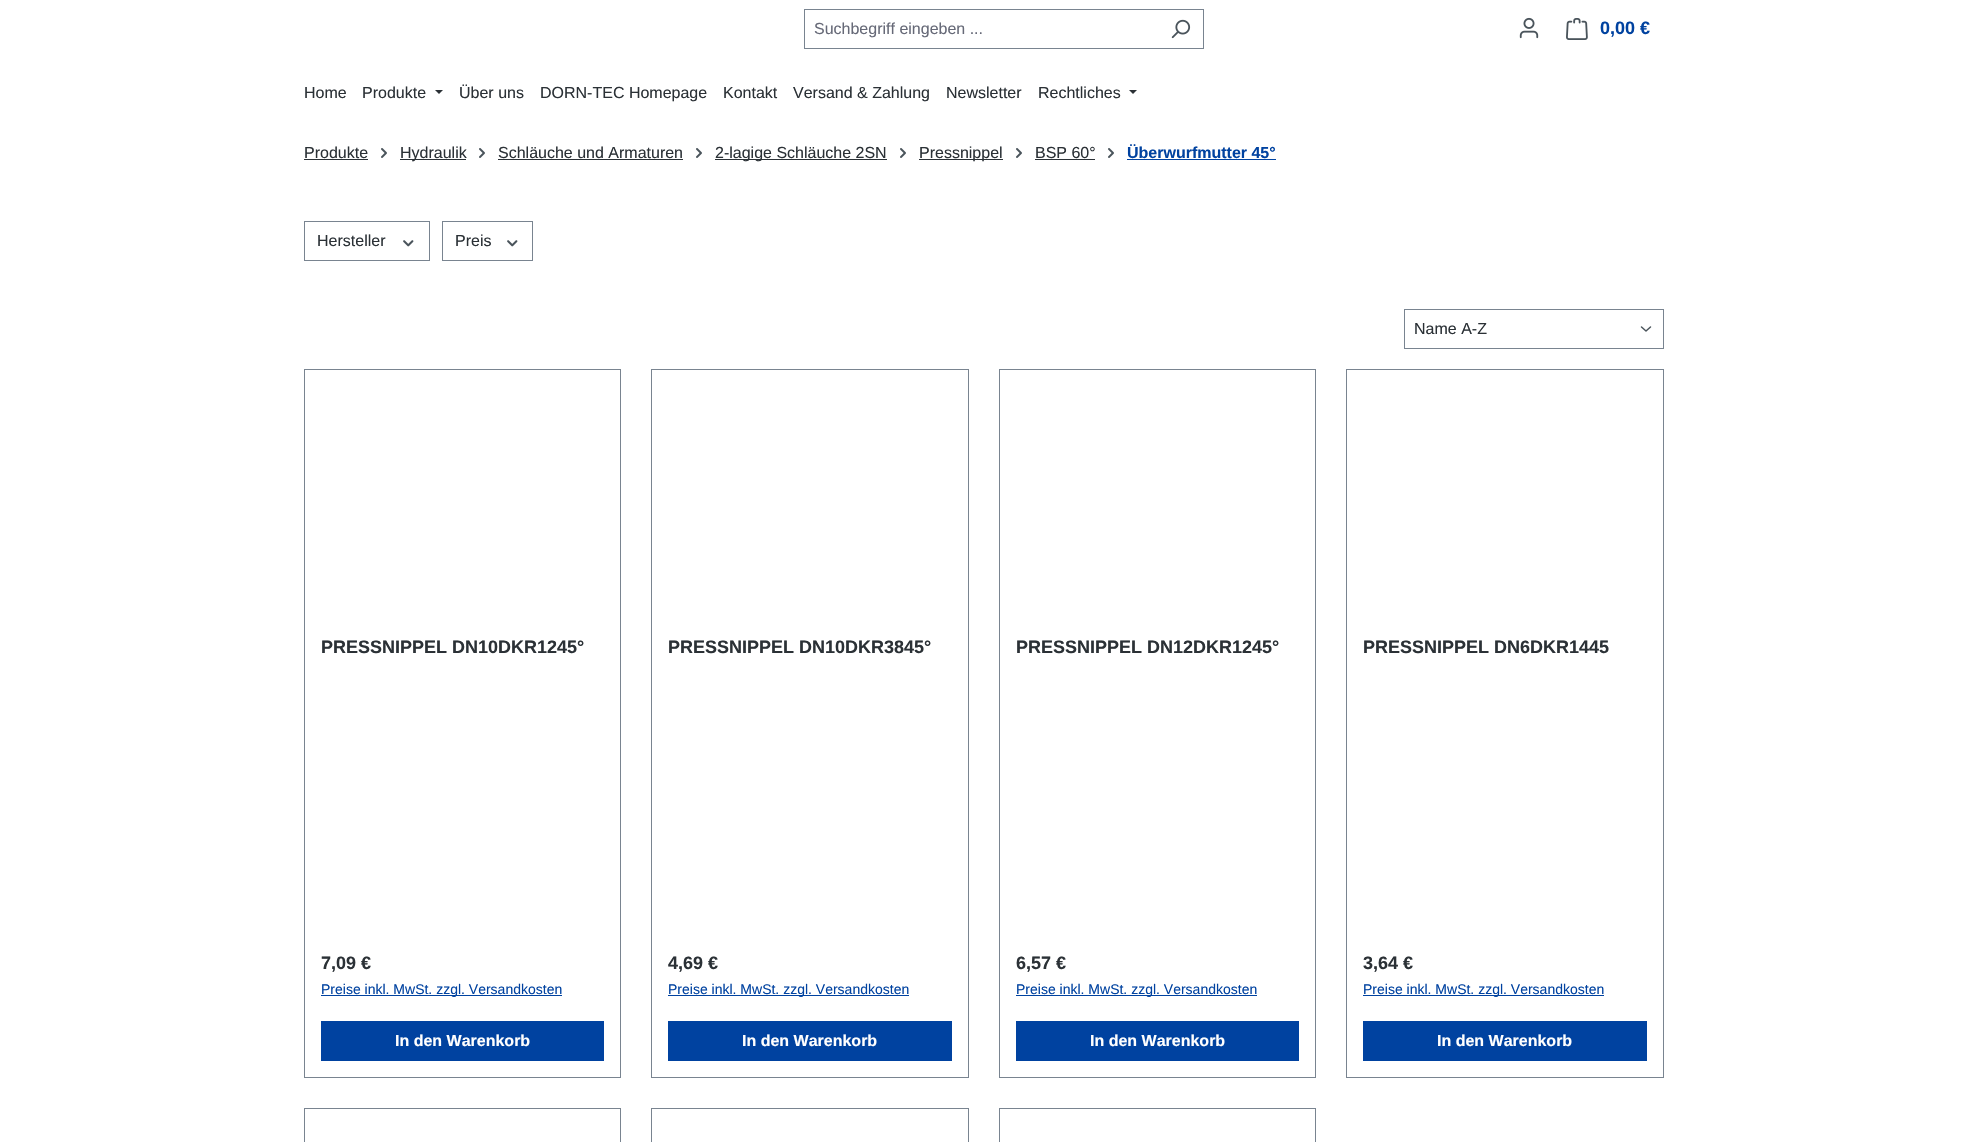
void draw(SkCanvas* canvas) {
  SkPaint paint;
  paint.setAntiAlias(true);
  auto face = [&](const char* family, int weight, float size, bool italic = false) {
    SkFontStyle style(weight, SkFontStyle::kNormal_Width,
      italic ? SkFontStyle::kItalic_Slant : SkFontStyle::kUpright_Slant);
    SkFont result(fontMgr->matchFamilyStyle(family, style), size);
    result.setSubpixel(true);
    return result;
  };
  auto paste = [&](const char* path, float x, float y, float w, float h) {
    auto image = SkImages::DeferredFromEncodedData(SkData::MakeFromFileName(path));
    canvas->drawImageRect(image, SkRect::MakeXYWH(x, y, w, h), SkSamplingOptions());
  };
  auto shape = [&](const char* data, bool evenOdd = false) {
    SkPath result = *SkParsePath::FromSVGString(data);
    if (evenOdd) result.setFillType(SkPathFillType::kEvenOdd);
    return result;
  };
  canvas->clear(0xffffffff);
  {
    const struct { float x, y, w, h; SkColor color; } items[] = {
      {804, 9, 400, 1, 0xff798490},
      {804, 48, 354, 1, 0xff798490},
      {804, 9, 1, 40, 0xff798490},
      {1203, 9, 1, 40, 0xff798490},
      {1157, 48, 47, 1, 0xff798490},
    };
    for (auto [x, y, w, h, color] : items) {
      paint.setColor(color);
      canvas->drawRect(SkRect::MakeXYWH(x, y, w, h), paint);
    }
  }
  paste("img/1.png", 1171, 19, 20, 20);
  paste("img/2.png", 1519, 17, 20, 22);
  paste("img/3.png", 1566, 18, 22, 22);
  paint.setColor(0xff2b3136);
  canvas->drawPath(shape("M435 90H443L439 94Z"), paint);
  canvas->drawPath(shape("M1129 90H1137L1133 94Z"), paint);
  canvas->drawRect(SkRect::MakeXYWH(304, 159, 64, 1), paint);
  paste("img/4.png", 381, 148, 6, 10);
  canvas->drawRect(SkRect::MakeXYWH(400, 159, 66, 1), paint);
  paste("img/4.png", 479, 148, 6, 10);
  canvas->drawRect(SkRect::MakeXYWH(498, 159, 185, 1), paint);
  paste("img/4.png", 696, 148, 6, 10);
  canvas->drawRect(SkRect::MakeXYWH(715, 159, 172, 1), paint);
  paste("img/4.png", 900, 148, 6, 10);
  canvas->drawRect(SkRect::MakeXYWH(919, 159, 84, 1), paint);
  paste("img/4.png", 1016, 148, 6, 10);
  canvas->drawRect(SkRect::MakeXYWH(1035, 159, 60, 1), paint);
  paste("img/4.png", 1108, 148, 6, 10);
  paint.setColor(0xff0042a0);
  canvas->drawRect(SkRect::MakeXYWH(1127, 159, 149, 1), paint);
  paint.setStroke(true);
  paint.setStrokeWidth(1);
  paint.setColor(0xff798490);
  canvas->drawRect(SkRect::MakeXYWH(304.5f, 221.5f, 125, 39), paint);
  paste("img/5.png", 403, 240, 11, 7);
  canvas->drawRect(SkRect::MakeXYWH(442.5f, 221.5f, 90, 39), paint);
  paste("img/5.png", 507, 240, 11, 7);
  paint.setStrokeWidth(1.5f);
  paint.setStrokeCap(SkPaint::kRound_Cap);
  paint.setStrokeJoin(SkPaint::kRound_Join);
  paint.setColor(0xff4a545b);
  canvas->drawPath(shape("M1641.5 327L1646 331L1650.5 327"), paint);
  paint.setStrokeWidth(1);
  paint.setStrokeCap(SkPaint::kButt_Cap);
  paint.setStrokeJoin(SkPaint::kMiter_Join);
  paint.setColor(0xff798490);
  canvas->drawRect(SkRect::MakeXYWH(1404.5f, 309.5f, 259, 39), paint);
  canvas->drawRect(SkRect::MakeXYWH(304.5f, 369.5f, 316, 708), paint);
  paint.setStroke(false);
  paint.setColor(0xff0042a0);
  canvas->drawRect(SkRect::MakeXYWH(321, 995, 241, 1), paint);
  canvas->drawRect(SkRect::MakeXYWH(321, 1021, 283, 40), paint);
  paint.setStroke(true);
  paint.setColor(0xff798490);
  canvas->drawRect(SkRect::MakeXYWH(651.5f, 369.5f, 317, 708), paint);
  paint.setStroke(false);
  paint.setColor(0xff0042a0);
  canvas->drawRect(SkRect::MakeXYWH(668, 995, 241, 1), paint);
  canvas->drawRect(SkRect::MakeXYWH(668, 1021, 284, 40), paint);
  paint.setStroke(true);
  paint.setColor(0xff798490);
  canvas->drawRect(SkRect::MakeXYWH(999.5f, 369.5f, 316, 708), paint);
  paint.setStroke(false);
  paint.setColor(0xff0042a0);
  canvas->drawRect(SkRect::MakeXYWH(1016, 995, 241, 1), paint);
  canvas->drawRect(SkRect::MakeXYWH(1016, 1021, 283, 40), paint);
  paint.setStroke(true);
  paint.setColor(0xff798490);
  canvas->drawRect(SkRect::MakeXYWH(1346.5f, 369.5f, 317, 708), paint);
  paint.setStroke(false);
  paint.setColor(0xff0042a0);
  canvas->drawRect(SkRect::MakeXYWH(1363, 995, 241, 1), paint);
  canvas->drawRect(SkRect::MakeXYWH(1363, 1021, 284, 40), paint);
  paint.setStroke(true);
  paint.setColor(0xff798490);
  canvas->drawRect(SkRect::MakeXYWH(304.5f, 1108.5f, 316, 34), paint);
  canvas->drawRect(SkRect::MakeXYWH(651.5f, 1108.5f, 317, 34), paint);
  canvas->drawRect(SkRect::MakeXYWH(999.5f, 1108.5f, 316, 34), paint);
  auto f0 = face("Liberation Sans", 400, 16);
  paint.setStroke(false);
  paint.setColor(0xff666977);
  canvas->drawString("Suchbegriff eingeben ...", 814, 34, f0, paint);
  auto f1 = face("Liberation Sans", 700, 18);
  paint.setColor(0xff0042a0);
  canvas->drawString("0,00 €", 1600, 34, f1, paint);
  paint.setColor(0xff2b3136);
  {
    const struct { const char* s; float x, y; } items[] = {
      {"Home", 304, 98},
      {"Produkte", 362, 98},
      {"Über uns", 459, 98},
      {"DORN-TEC Homepage", 540, 98},
      {"Kontakt", 723, 98},
      {"Versand & Zahlung", 793, 98},
      {"Newsletter", 946, 98},
      {"Rechtliches", 1038, 98},
      {"Produkte", 304, 158},
      {"Hydraulik", 400, 158},
      {"Schläuche und Armaturen", 498, 158},
      {"2-lagige Schläuche 2SN", 715, 158},
      {"Pressnippel", 919, 158},
      {"BSP 60°", 1035, 158},
    };
    for (auto [s, x, y] : items) {
      canvas->drawString(s, x, y, f0, paint);
    }
  }
  auto f2 = face("Liberation Sans", 700, 16);
  paint.setColor(0xff0042a0);
  canvas->drawString("Überwurfmutter 45°", 1127, 158, f2, paint);
  paint.setColor(0xff2b3136);
  {
    const struct { const char* s; float x, y; } items[] = {
      {"Hersteller", 317, 246},
      {"Preis", 455, 246},
      {"Name A-Z", 1414, 334},
    };
    for (auto [s, x, y] : items) {
      canvas->drawString(s, x, y, f0, paint);
    }
  }
  canvas->drawString("PRESSNIPPEL DN10DKR1245°", 321, 653, f1, paint);
  canvas->drawString("7,09 €", 321, 969, f1, paint);
  auto f3 = face("Liberation Sans", 400, 14);
  paint.setColor(0xff0042a0);
  canvas->drawString("Preise inkl. MwSt. zzgl. Versandkosten", 321, 994, f3, paint);
  paint.setColor(0xffffffff);
  canvas->drawString("In den Warenkorb", 395, 1046, f2, paint);
  paint.setColor(0xff2b3136);
  canvas->drawString("PRESSNIPPEL DN10DKR3845°", 668, 653, f1, paint);
  canvas->drawString("4,69 €", 668, 969, f1, paint);
  paint.setColor(0xff0042a0);
  canvas->drawString("Preise inkl. MwSt. zzgl. Versandkosten", 668, 994, f3, paint);
  paint.setColor(0xffffffff);
  canvas->drawString("In den Warenkorb", 742, 1046, f2, paint);
  paint.setColor(0xff2b3136);
  canvas->drawString("PRESSNIPPEL DN12DKR1245°", 1016, 653, f1, paint);
  canvas->drawString("6,57 €", 1016, 969, f1, paint);
  paint.setColor(0xff0042a0);
  canvas->drawString("Preise inkl. MwSt. zzgl. Versandkosten", 1016, 994, f3, paint);
  paint.setColor(0xffffffff);
  canvas->drawString("In den Warenkorb", 1090, 1046, f2, paint);
  paint.setColor(0xff2b3136);
  canvas->drawString("PRESSNIPPEL DN6DKR1445", 1363, 653, f1, paint);
  canvas->drawString("3,64 €", 1363, 969, f1, paint);
  paint.setColor(0xff0042a0);
  canvas->drawString("Preise inkl. MwSt. zzgl. Versandkosten", 1363, 994, f3, paint);
  paint.setColor(0xffffffff);
  canvas->drawString("In den Warenkorb", 1437, 1046, f2, paint);
}
